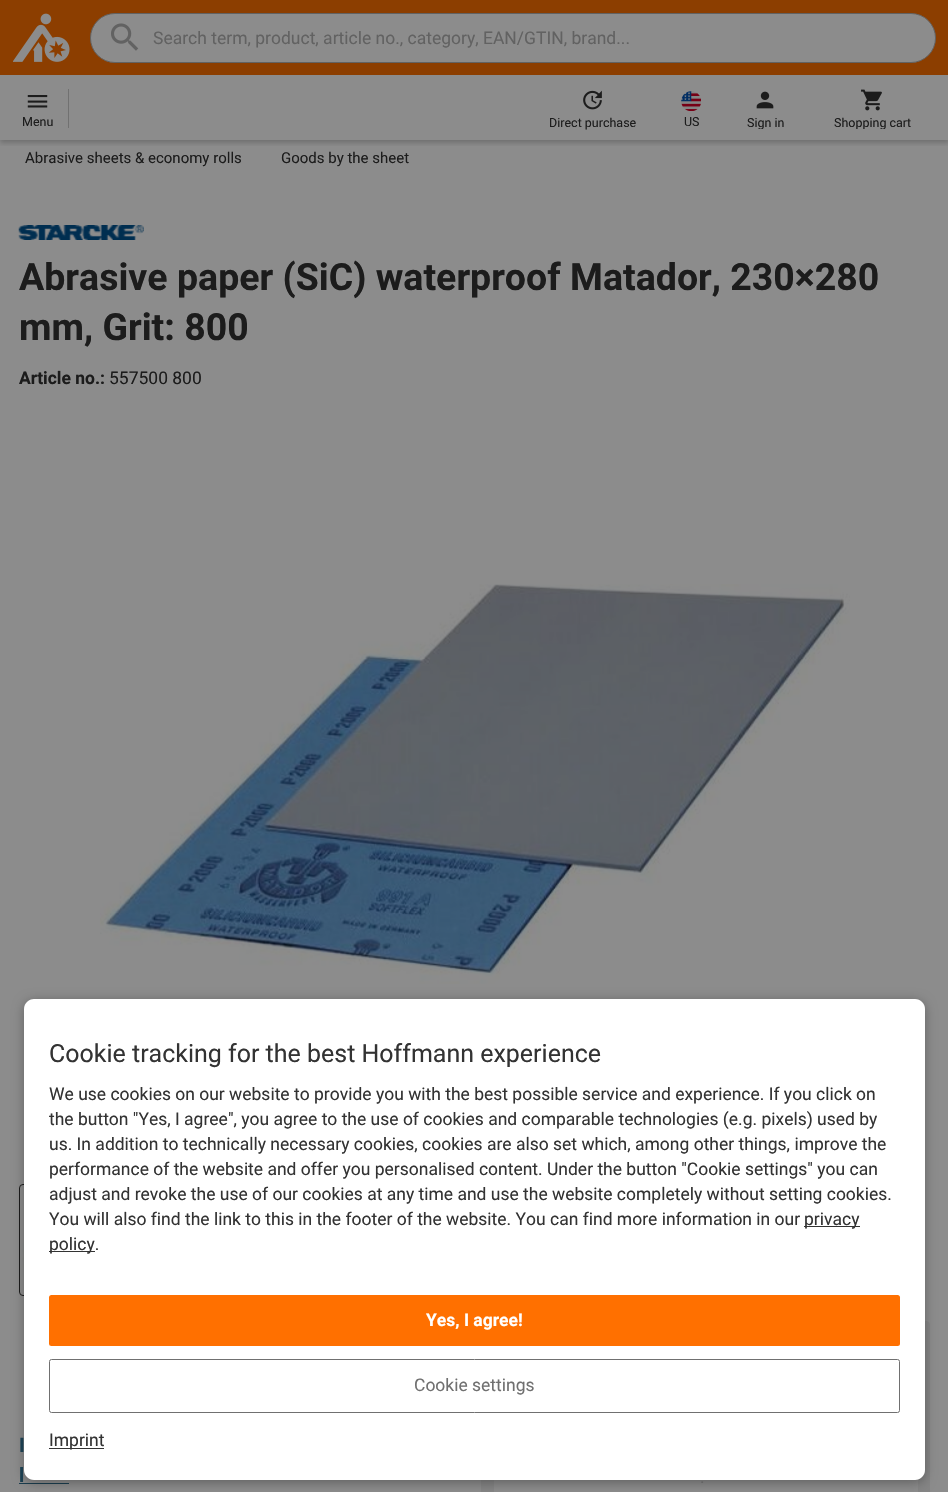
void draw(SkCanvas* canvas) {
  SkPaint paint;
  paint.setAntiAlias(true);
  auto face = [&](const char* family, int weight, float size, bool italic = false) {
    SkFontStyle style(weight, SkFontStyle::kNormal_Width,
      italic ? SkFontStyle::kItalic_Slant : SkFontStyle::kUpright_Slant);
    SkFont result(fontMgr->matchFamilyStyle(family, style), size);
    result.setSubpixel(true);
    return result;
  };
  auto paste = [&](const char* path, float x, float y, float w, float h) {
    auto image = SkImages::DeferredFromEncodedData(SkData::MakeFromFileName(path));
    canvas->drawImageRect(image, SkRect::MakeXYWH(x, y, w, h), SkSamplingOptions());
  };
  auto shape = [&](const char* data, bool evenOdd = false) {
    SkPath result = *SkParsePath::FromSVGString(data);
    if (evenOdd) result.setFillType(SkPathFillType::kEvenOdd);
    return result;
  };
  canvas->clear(0xff8c8c8c);
  paint.setColor(0xff8c3e00);
  canvas->drawRect(SkRect::MakeXYWH(0, 0, 948, 75), paint);
  paste("img/1.png", 13, 13, 57, 49);
  paint.setColor(0xff8c8c8c);
  canvas->drawRoundRect(SkRect::MakeXYWH(90.5f, 13.5f, 845, 49), 24.5f, 24.5f, paint);
  paint.setStroke(true);
  paint.setStrokeWidth(1);
  paint.setColor(0xff626262);
  canvas->drawRoundRect(SkRect::MakeXYWH(90.5f, 13.5f, 845, 49), 24.5f, 24.5f, paint);
  paste("img/2.png", 111, 23, 28, 28);
  canvas->save();
  canvas->clipRect(SkRect::MakeXYWH(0, 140, 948, 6));
  paint.setStroke(false);
  paint.setColor(0x33000000);
  paint.setMaskFilter(SkMaskFilter::MakeBlur(kNormal_SkBlurStyle, 2.5f));
  canvas->drawRect(SkRect::MakeXYWH(0, 78, 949, 65), paint);
  paint.setMaskFilter(nullptr);
  canvas->restore();
  paste("img/3.png", 27, 95, 21, 13);
  paint.setColor(0xff717171);
  canvas->drawRect(SkRect::MakeXYWH(68, 89, 1, 39), paint);
  paste("img/4.png", 583, 90, 19, 20);
  paste("img/5.png", 681, 91, 20, 20);
  paste("img/6.png", 756, 91, 18, 18);
  paste("img/7.png", 861, 89, 21, 22);
  paste("img/8.png", 18, 225, 126, 15);
  paste("img/9.png", 100, 584, 750, 400);
  paint.setStroke(true);
  paint.setColor(0xff1c1c1c);
  canvas->drawRoundRect(SkRect::MakeXYWH(19.5f, 1184.5f, 111, 111), 3.5f, 3.5f, paint);
  paste("img/10.png", 22, 1214, 2, 58);
  paint.setStroke(false);
  paint.setColor(0xff1b3e4f);
  canvas->drawRect(SkRect::MakeXYWH(19, 1483, 50, 1), paint);
  paint.setColor(0xff858585);
  canvas->drawRoundRect(SkRect::MakeXYWH(481, 1321, 449, 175), 4, 4, paint);
  paint.setColor(0xff8c8c8c);
  canvas->drawRect(SkRect::MakeXYWH(494, 1479, 424, 13), paint);
  paint.setColor(0x4d000000);
  paint.setMaskFilter(SkMaskFilter::MakeBlur(kNormal_SkBlurStyle, 6));
  canvas->drawRoundRect(SkRect::MakeXYWH(24, 1001, 901, 482), 10, 10, paint);
  paint.setMaskFilter(nullptr);
  paint.setColor(0xffffffff);
  canvas->drawPath(shape("M34 999H915C920.5 999 925 1003.5 925 1009V1283H24V1009C24 1003.5 28.5 999 34 999Z"), paint);
  paint.setColor(0xff333333);
  canvas->drawRect(SkRect::MakeXYWH(804, 1226, 56, 1), paint);
  canvas->drawRect(SkRect::MakeXYWH(49, 1251, 46, 1), paint);
  paint.setColor(0xffffffff);
  canvas->drawPath(shape("M24 1283H925V1470C925 1475.5 920.5 1480 915 1480H34C28.5 1480 24 1475.5 24 1470Z"), paint);
  paint.setColor(0xffff7000);
  canvas->drawRoundRect(SkRect::MakeXYWH(49, 1295, 851, 51), 2.5f, 2.5f, paint);
  paint.setStroke(true);
  paint.setColor(0xff707070);
  canvas->drawRoundRect(SkRect::MakeXYWH(49.5f, 1359.5f, 850, 53), 2, 2, paint);
  paint.setStroke(false);
  paint.setColor(0xff333333);
  canvas->drawRect(SkRect::MakeXYWH(49, 1448, 55, 1), paint);
  auto f0 = face("Roboto", 400, 17.5f);
  paint.setColor(0xff626262);
  canvas->drawString("Search term, product, article no., category, EAN/GTIN, brand...", 153, 44, f0, paint);
  auto f1 = face("Roboto", 400, 12.5f);
  paint.setColor(0xff1c1c1c);
  {
    const struct { const char* s; float x, y; } items[] = {
      {"Menu", 22, 126},
      {"Direct purchase", 549, 127},
      {"US", 684, 126},
    };
    for (auto [s, x, y] : items) {
      canvas->drawString(s, x, y, f1, paint);
    }
  }
  canvas->save();
  canvas->clipRect(SkRect::MakeXYWH(734, 115, 62, 14));
  canvas->drawString("Sign in", 747, 127, f1, paint);
  canvas->restore();
  canvas->save();
  canvas->clipRect(SkRect::MakeXYWH(821, 115, 103, 14));
  canvas->drawString("Shopping cart", 834, 127, f1, paint);
  canvas->restore();
  auto f2 = face("Roboto", 400, 15);
  canvas->drawString("Abrasive sheets & economy rolls", 25, 163, f2, paint);
  canvas->drawString("Goods by the sheet", 281, 163, f2, paint);
  auto f3 = face("Roboto", 700, 37.5f);
  canvas->drawString("Abrasive paper (SiC) waterproof Matador, 230×280", 19, 290, f3, paint);
  canvas->drawString("mm, Grit: 800", 19, 340, f3, paint);
  auto f4 = face("Roboto", 700, 17.5f);
  canvas->drawString("Article no.:", 19, 384, f4, paint);
  canvas->drawString("557500 800", 109, 384, f0, paint);
  auto f5 = face("Roboto", 700, 20);
  paint.setColor(0xff1b3e4f);
  canvas->drawString("I", 19, 1452, f5, paint);
  canvas->drawString("l", 19, 1482, f5, paint);
  paint.setColor(0xff626262);
  canvas->drawString(".", 700, 1483, f0, paint);
  auto f6 = face("Roboto", 400, 25);
  paint.setColor(0xff333333);
  canvas->drawString("Cookie tracking for the best Hoffmann experience", 49, 1062, f6, paint);
  {
    const struct { const char* s; float x, y; } items[] = {
      {"We use cookies on our website to provide you with the best possible service and experience. If you click on", 49, 1100},
      {"the button \"Yes, I agree\", you agree to the use of cookies and comparable technologies (e.g. pixels) used by", 49, 1125},
      {"us. In addition to technically necessary cookies, cookies are also set which, among other things, improve the", 49, 1150},
      {"performance of the website and offer you personalised content. Under the button \"Cookie settings\" you can", 49, 1175},
      {"adjust and revoke the use of our cookies at any time and use the website completely without setting cookies.", 49, 1200},
      {"You will also find the link to this in the footer of the website. You can find more information in our", 49, 1225},
      {"privacy", 804, 1225},
      {"policy.", 49, 1250},
    };
    for (auto [s, x, y] : items) {
      canvas->drawString(s, x, y, f0, paint);
    }
  }
  paint.setColor(0xffffffff);
  canvas->drawString("Yes, I agree!", 426, 1326, f4, paint);
  paint.setColor(0xff707070);
  canvas->drawString("Cookie settings", 414, 1391, f0, paint);
  paint.setColor(0xff333333);
  canvas->drawString("Imprint", 49, 1446, f0, paint);
}
